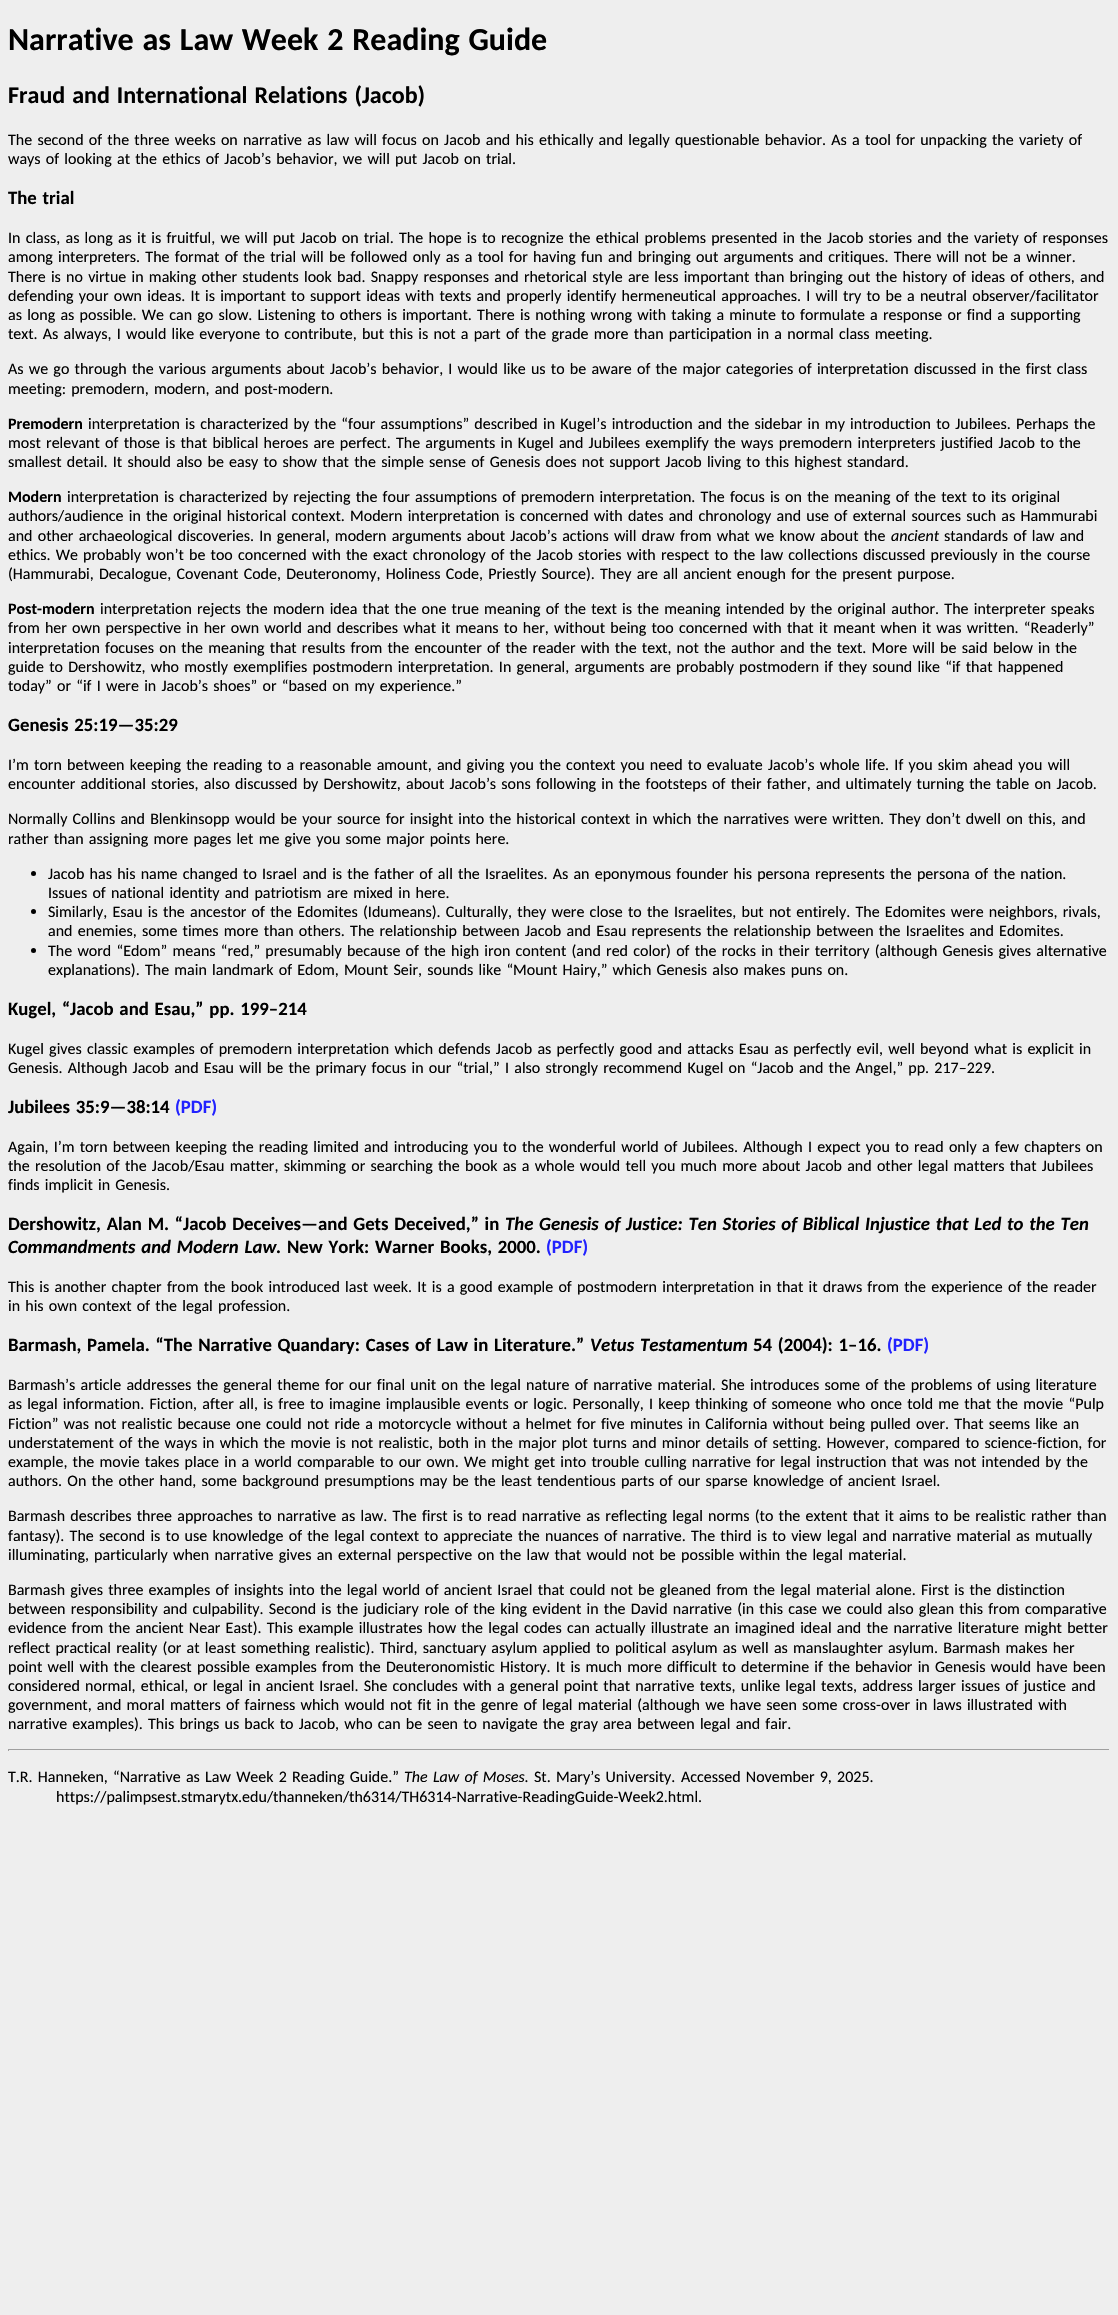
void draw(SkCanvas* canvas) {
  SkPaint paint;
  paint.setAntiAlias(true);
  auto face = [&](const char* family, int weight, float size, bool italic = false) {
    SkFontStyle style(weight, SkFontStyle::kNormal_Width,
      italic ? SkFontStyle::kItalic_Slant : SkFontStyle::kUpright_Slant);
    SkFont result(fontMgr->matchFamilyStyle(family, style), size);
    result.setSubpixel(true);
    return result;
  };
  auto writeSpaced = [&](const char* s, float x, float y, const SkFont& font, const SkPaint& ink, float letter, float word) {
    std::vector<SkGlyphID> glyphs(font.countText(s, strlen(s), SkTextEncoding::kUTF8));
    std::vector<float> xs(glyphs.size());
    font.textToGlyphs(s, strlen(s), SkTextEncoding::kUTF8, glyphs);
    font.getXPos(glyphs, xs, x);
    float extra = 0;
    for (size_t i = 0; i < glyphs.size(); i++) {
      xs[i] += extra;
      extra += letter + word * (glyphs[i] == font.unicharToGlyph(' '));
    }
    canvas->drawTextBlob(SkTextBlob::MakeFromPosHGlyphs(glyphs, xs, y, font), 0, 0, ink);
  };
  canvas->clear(0xffeeeeee);
  paint.setColor(0xff000000);
  canvas->drawCircle(33.5f, 873.5f, 2.5f, paint);
  canvas->drawCircle(33.5f, 911.5f, 2.5f, paint);
  canvas->drawCircle(33.5f, 950.5f, 2.5f, paint);
  {
    const struct { float x, y, w, h; SkColor color; } items[] = {
      {8, 1749, 1102, 1, 0xff9f9f9f},
      {1109, 1749, 1, 2, 0xffeeeeee},
      {8, 1749, 1, 2, 0xff9f9f9f},
    };
    for (auto [x, y, w, h, color] : items) {
      paint.setColor(color);
      canvas->drawRect(SkRect::MakeXYWH(x, y, w, h), paint);
    }
  }
  auto f0 = face("Carlito", 700, 32);
  paint.setColor(0xff000000);
  writeSpaced("Narrative as Law Week 2 Reading Guide", 8, 50, f0, paint, 0, 1.6f);
  auto f1 = face("Carlito", 700, 24);
  writeSpaced("Fraud and International Relations (Jacob)", 8, 103, f1, paint, 0, 1.6f);
  auto f2 = face("Carlito", 400, 16);
  writeSpaced("The second of the three weeks on narrative as law will focus on Jacob and his ethically and legally questionable behavior. As a tool for unpacking the variety of", 8, 145, f2, paint, 0, 1.6f);
  writeSpaced("ways of looking at the ethics of Jacob’s behavior, we will put Jacob on trial.", 8, 164, f2, paint, 0, 1.6f);
  auto f3 = face("Carlito", 700, 18.75f);
  writeSpaced("The trial", 8, 204, f3, paint, 0, 1.6f);
  {
    const struct { const char* s; float x, y; } items[] = {
      {"In class, as long as it is fruitful, we will put Jacob on trial. The hope is to recognize the ethical problems presented in the Jacob stories and the variety of responses", 8, 243},
      {"among interpreters. The format of the trial will be followed only as a tool for having fun and bringing out arguments and critiques. There will not be a winner.", 8, 262},
      {"There is no virtue in making other students look bad. Snappy responses and rhetorical style are less important than bringing out the history of ideas of others, and", 8, 282},
      {"defending your own ideas. It is important to support ideas with texts and properly identify hermeneutical approaches. I will try to be a neutral observer/facilitator", 8, 301},
      {"as long as possible. We can go slow. Listening to others is important. There is nothing wrong with taking a minute to formulate a response or find a supporting", 8, 320},
      {"text. As always, I would like everyone to contribute, but this is not a part of the grade more than participation in a normal class meeting.", 8, 339},
      {"As we go through the various arguments about Jacob’s behavior, I would like us to be aware of the major categories of interpretation discussed in the first class", 8, 374},
      {"meeting: premodern, modern, and post-modern.", 8, 394},
    };
    for (auto [s, x, y] : items) {
      writeSpaced(s, x, y, f2, paint, 0, 1.6f);
    }
  }
  auto f4 = face("Carlito", 700, 16);
  canvas->drawString("Premodern", 8, 429, f4, paint);
  {
    const struct { const char* s; float x, y; } items[] = {
      {"interpretation is characterized by the “four assumptions” described in Kugel’s introduction and the sidebar in my introduction to Jubilees. Perhaps the", 88, 429},
      {"most relevant of those is that biblical heroes are perfect. The arguments in Kugel and Jubilees exemplify the ways premodern interpreters justified Jacob to the", 8, 448},
      {"smallest detail. It should also be easy to show that the simple sense of Genesis does not support Jacob living to this highest standard.", 8, 467},
    };
    for (auto [s, x, y] : items) {
      writeSpaced(s, x, y, f2, paint, 0, 1.6f);
    }
  }
  canvas->drawString("Modern", 8, 502, f4, paint);
  {
    const struct { const char* s; float x, y; } items[] = {
      {"interpretation is characterized by rejecting the four assumptions of premodern interpretation. The focus is on the meaning of the text to its original", 67, 502},
      {"authors/audience in the original historical context. Modern interpretation is concerned with dates and chronology and use of external sources such as Hammurabi", 8, 521},
      {"and other archaeological discoveries. In general, modern arguments about Jacob’s actions will draw from what we know about the", 8, 541},
    };
    for (auto [s, x, y] : items) {
      writeSpaced(s, x, y, f2, paint, 0, 1.6f);
    }
  }
  auto f5 = face("Carlito", 400, 16, true);
  canvas->drawString("ancient", 891, 541, f5, paint);
  {
    const struct { const char* s; float x, y; } items[] = {
      {"standards of law and", 944, 541},
      {"ethics. We probably won’t be too concerned with the exact chronology of the Jacob stories with respect to the law collections discussed previously in the course", 8, 560},
      {"(Hammurabi, Decalogue, Covenant Code, Deuteronomy, Holiness Code, Priestly Source). They are all ancient enough for the present purpose.", 8, 579},
    };
    for (auto [s, x, y] : items) {
      writeSpaced(s, x, y, f2, paint, 0, 1.6f);
    }
  }
  canvas->drawString("Post-modern", 8, 614, f4, paint);
  {
    const struct { const char* s; float x, y; } items[] = {
      {"interpretation rejects the modern idea that the one true meaning of the text is the meaning intended by the original author. The interpreter speaks", 100, 614},
      {"from her own perspective in her own world and describes what it means to her, without being too concerned with that it meant when it was written. “Readerly”", 8, 633},
      {"interpretation focuses on the meaning that results from the encounter of the reader with the text, not the author and the text. More will be said below in the", 8, 653},
      {"guide to Dershowitz, who mostly exemplifies postmodern interpretation. In general, arguments are probably postmodern if they sound like “if that happened", 8, 672},
      {"today” or “if I were in Jacob’s shoes” or “based on my experience.”", 8, 691},
    };
    for (auto [s, x, y] : items) {
      writeSpaced(s, x, y, f2, paint, 0, 1.6f);
    }
  }
  writeSpaced("Genesis 25:19—35:29", 8, 731, f3, paint, 0, 1.6f);
  {
    const struct { const char* s; float x, y; } items[] = {
      {"I’m torn between keeping the reading to a reasonable amount, and giving you the context you need to evaluate Jacob’s whole life. If you skim ahead you will", 8, 770},
      {"encounter additional stories, also discussed by Dershowitz, about Jacob’s sons following in the footsteps of their father, and ultimately turning the table on Jacob.", 8, 789},
      {"Normally Collins and Blenkinsopp would be your source for insight into the historical context in which the narratives were written. They don’t dwell on this, and", 8, 824},
      {"rather than assigning more pages let me give you some major points here.", 8, 844},
      {"Jacob has his name changed to Israel and is the father of all the Israelites. As an eponymous founder his persona represents the persona of the nation.", 48, 879},
      {"Issues of national identity and patriotism are mixed in here.", 48, 898},
      {"Similarly, Esau is the ancestor of the Edomites (Idumeans). Culturally, they were close to the Israelites, but not entirely. The Edomites were neighbors, rivals,", 48, 917},
      {"and enemies, some times more than others. The relationship between Jacob and Esau represents the relationship between the Israelites and Edomites.", 48, 936},
      {"The word “Edom” means “red,” presumably because of the high iron content (and red color) of the rocks in their territory (although Genesis gives alternative", 48, 956},
      {"explanations). The main landmark of Edom, Mount Seir, sounds like “Mount Hairy,” which Genesis also makes puns on.", 48, 975},
    };
    for (auto [s, x, y] : items) {
      writeSpaced(s, x, y, f2, paint, 0, 1.6f);
    }
  }
  writeSpaced("Kugel, “Jacob and Esau,” pp. 199–214", 8, 1015, f3, paint, 0, 1.6f);
  writeSpaced("Kugel gives classic examples of premodern interpretation which defends Jacob as perfectly good and attacks Esau as perfectly evil, well beyond what is explicit in", 8, 1054, f2, paint, 0, 1.6f);
  writeSpaced("Genesis. Although Jacob and Esau will be the primary focus in our “trial,” I also strongly recommend Kugel on “Jacob and the Angel,” pp. 217–229.", 8, 1073, f2, paint, 0, 1.6f);
  writeSpaced("Jubilees 35:9—38:14", 8, 1113, f3, paint, 0, 1.6f);
  paint.setColor(0xff2222ff);
  canvas->drawString("(PDF)", 175, 1113, f3, paint);
  paint.setColor(0xff000000);
  {
    const struct { const char* s; float x, y; } items[] = {
      {"Again, I’m torn between keeping the reading limited and introducing you to the wonderful world of Jubilees. Although I expect you to read only a few chapters on", 8, 1152},
      {"the resolution of the Jacob/Esau matter, skimming or searching the book as a whole would tell you much more about Jacob and other legal matters that Jubilees", 8, 1171},
      {"finds implicit in Genesis.", 8, 1190},
    };
    for (auto [s, x, y] : items) {
      writeSpaced(s, x, y, f2, paint, 0, 1.6f);
    }
  }
  writeSpaced("Dershowitz, Alan M. “Jacob Deceives—and Gets Deceived,” in", 8, 1230, f3, paint, 0, 1.5f);
  auto f6 = face("Carlito", 700, 18.75f, true);
  writeSpaced("The Genesis of Justice: Ten Stories of Biblical Injustice that Led to the Ten", 505, 1230, f6, paint, 0, 1.5f);
  writeSpaced("Commandments and Modern Law.", 8, 1253, f6, paint, 0, 1.6f);
  writeSpaced("New York: Warner Books, 2000.", 287, 1253, f3, paint, 0, 1.6f);
  paint.setColor(0xff2222ff);
  canvas->drawString("(PDF)", 546, 1253, f3, paint);
  paint.setColor(0xff000000);
  writeSpaced("This is another chapter from the book introduced last week. It is a good example of postmodern interpretation in that it draws from the experience of the reader", 8, 1292, f2, paint, 0, 1.6f);
  writeSpaced("in his own context of the legal profession.", 8, 1311, f2, paint, 0, 1.6f);
  writeSpaced("Barmash, Pamela. “The Narrative Quandary: Cases of Law in Literature.”", 8, 1351, f3, paint, 0, 1.5f);
  writeSpaced("Vetus Testamentum", 590, 1351, f6, paint, 0, 1.6f);
  writeSpaced("54 (2004): 1–16.", 753, 1351, f3, paint, 0, 1.6f);
  paint.setColor(0xff2222ff);
  canvas->drawString("(PDF)", 887, 1351, f3, paint);
  paint.setColor(0xff000000);
  {
    const struct { const char* s; float x, y; } items[] = {
      {"Barmash’s article addresses the general theme for our final unit on the legal nature of narrative material. She introduces some of the problems of using literature", 8, 1390},
      {"as legal information. Fiction, after all, is free to imagine implausible events or logic. Personally, I keep thinking of someone who once told me that the movie “Pulp", 8, 1409},
      {"Fiction” was not realistic because one could not ride a motorcycle without a helmet for five minutes in California without being pulled over. That seems like an", 8, 1429},
      {"understatement of the ways in which the movie is not realistic, both in the major plot turns and minor details of setting. However, compared to science-fiction, for", 8, 1448},
      {"example, the movie takes place in a world comparable to our own. We might get into trouble culling narrative for legal instruction that was not intended by the", 8, 1467},
      {"authors. On the other hand, some background presumptions may be the least tendentious parts of our sparse knowledge of ancient Israel.", 8, 1486},
      {"Barmash describes three approaches to narrative as law. The first is to read narrative as reflecting legal norms (to the extent that it aims to be realistic rather than", 8, 1521},
      {"fantasy). The second is to use knowledge of the legal context to appreciate the nuances of narrative. The third is to view legal and narrative material as mutually", 8, 1541},
      {"illuminating, particularly when narrative gives an external perspective on the law that would not be possible within the legal material.", 8, 1560},
      {"Barmash gives three examples of insights into the legal world of ancient Israel that could not be gleaned from the legal material alone. First is the distinction", 8, 1595},
      {"between responsibility and culpability. Second is the judiciary role of the king evident in the David narrative (in this case we could also glean this from comparative", 8, 1614},
      {"evidence from the ancient Near East). This example illustrates how the legal codes can actually illustrate an imagined ideal and the narrative literature might better", 8, 1633},
      {"reflect practical reality (or at least something realistic). Third, sanctuary asylum applied to political asylum as well as manslaughter asylum. Barmash makes her", 8, 1653},
      {"point well with the clearest possible examples from the Deuteronomistic History. It is much more difficult to determine if the behavior in Genesis would have been", 8, 1672},
      {"considered normal, ethical, or legal in ancient Israel. She concludes with a general point that narrative texts, unlike legal texts, address larger issues of justice and", 8, 1691},
      {"government, and moral matters of fairness which would not fit in the genre of legal material (although we have seen some cross-over in laws illustrated with", 8, 1710},
      {"narrative examples). This brings us back to Jacob, who can be seen to navigate the gray area between legal and fair.", 8, 1729},
      {"T.R. Hanneken,", 8, 1782},
      {"“Narrative as Law Week 2 Reading Guide.”", 113, 1782},
    };
    for (auto [s, x, y] : items) {
      writeSpaced(s, x, y, f2, paint, 0, 1.6f);
    }
  }
  writeSpaced("The Law of Moses.", 404, 1782, f5, paint, 0, 1.6f);
  writeSpaced("St. Mary’s University.", 534, 1782, f2, paint, 0, 1.6f);
  writeSpaced("Accessed November 9, 2025.", 681, 1782, f2, paint, 0, 1.6f);
  canvas->drawString("https://palimpsest.stmarytx.edu/thanneken/th6314/TH6314-Narrative-ReadingGuide-Week2.html.", 56, 1802, f2, paint);
}
